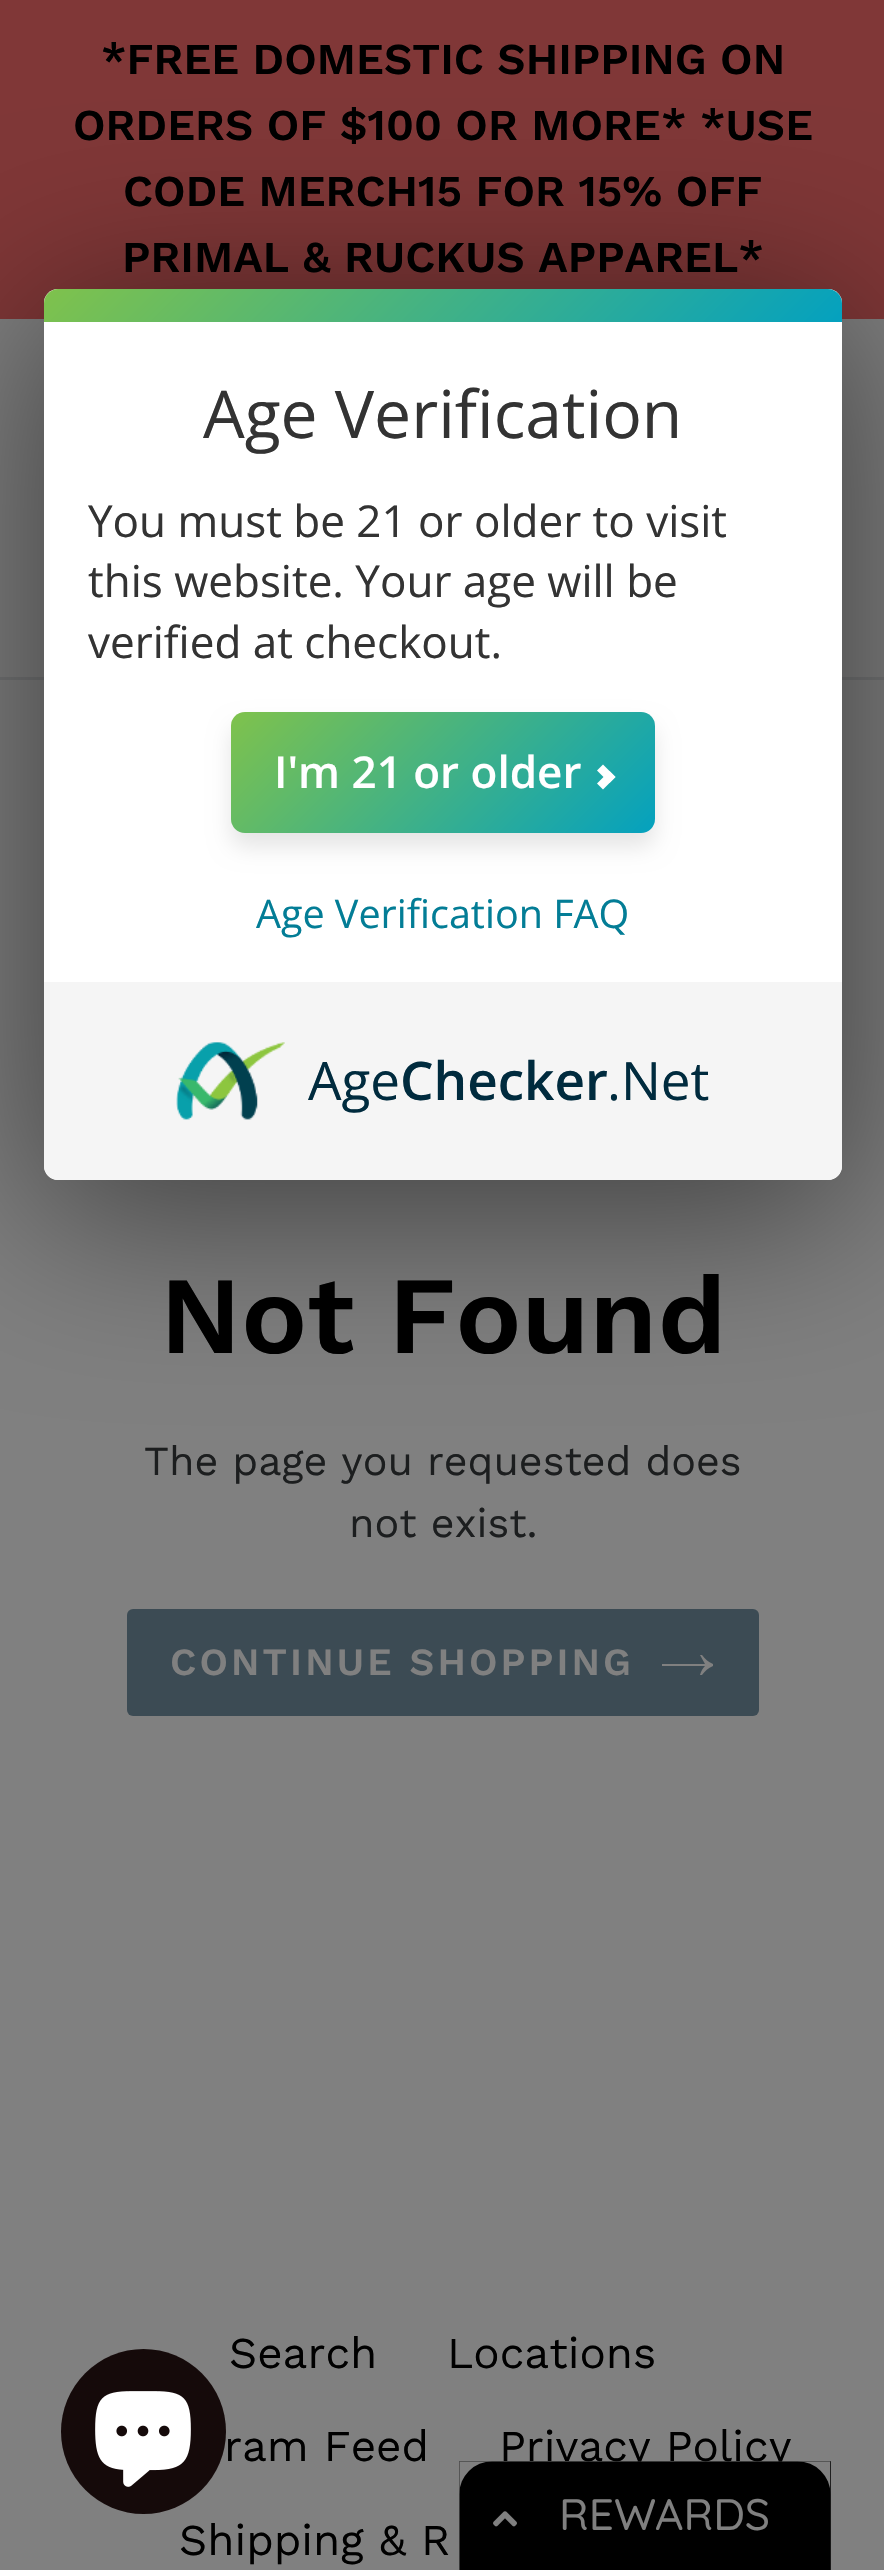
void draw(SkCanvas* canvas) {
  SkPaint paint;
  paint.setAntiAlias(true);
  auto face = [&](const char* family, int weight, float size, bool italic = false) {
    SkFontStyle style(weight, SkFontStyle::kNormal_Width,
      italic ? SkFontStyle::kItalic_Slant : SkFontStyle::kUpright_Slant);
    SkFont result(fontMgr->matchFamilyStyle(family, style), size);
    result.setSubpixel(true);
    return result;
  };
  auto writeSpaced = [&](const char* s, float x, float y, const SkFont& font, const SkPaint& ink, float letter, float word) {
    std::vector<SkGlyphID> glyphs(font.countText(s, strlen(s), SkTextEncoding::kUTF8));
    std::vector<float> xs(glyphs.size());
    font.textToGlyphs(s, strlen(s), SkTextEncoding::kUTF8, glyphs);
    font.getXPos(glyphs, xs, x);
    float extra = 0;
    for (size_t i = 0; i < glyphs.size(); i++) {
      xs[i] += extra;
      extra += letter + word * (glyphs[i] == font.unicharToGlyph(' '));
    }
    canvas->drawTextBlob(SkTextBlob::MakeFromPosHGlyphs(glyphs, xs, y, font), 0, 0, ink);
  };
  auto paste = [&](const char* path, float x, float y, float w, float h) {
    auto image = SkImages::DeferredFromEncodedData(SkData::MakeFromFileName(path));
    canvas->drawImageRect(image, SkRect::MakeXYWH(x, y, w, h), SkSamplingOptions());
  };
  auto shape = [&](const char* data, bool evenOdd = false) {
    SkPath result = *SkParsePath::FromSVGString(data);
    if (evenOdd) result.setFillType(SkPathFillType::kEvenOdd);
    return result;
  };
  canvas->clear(0xff808080);
  paint.setColor(0xff803737);
  canvas->drawRect(SkRect::MakeXYWH(0, 0, 884, 319), paint);
  paint.setColor(0xff747576);
  canvas->drawRect(SkRect::MakeXYWH(0, 677, 884, 3), paint);
  paint.setColor(0x80000000);
  paint.setMaskFilter(SkMaskFilter::MakeBlur(kNormal_SkBlurStyle, 88));
  canvas->drawRoundRect(SkRect::MakeXYWH(36, 308, 814, 908), 22, 22, paint);
  paint.setMaskFilter(nullptr);
  paint.setColor(0xffffffff);
  canvas->drawRoundRect(SkRect::MakeXYWH(44, 289, 798, 891), 14, 14, paint);
  {
    const SkColor colors[] = {0xff7fc24c, 0xff04a1bf};
    const float stops[] = {0, 1};
    const SkPoint ends[] = {{235, 98}, {650, 513}};
    paint.setShader(SkGradientShader::MakeLinear(ends, colors, stops, 2, SkTileMode::kClamp));
    paint.setAlpha(255);
  }
  canvas->drawPath(shape("M58 289H828C835.5 289 842 295.5 842 303V322H44V303C44 295.5 50.5 289 58 289Z"), paint);
  paint.setShader(nullptr);
  paint.setColor(0x1a000000);
  paint.setMaskFilter(SkMaskFilter::MakeBlur(kNormal_SkBlurStyle, 11));
  canvas->drawRoundRect(SkRect::MakeXYWH(231, 726, 424, 121), 14, 14, paint);
  paint.setMaskFilter(nullptr);
  {
    const SkColor colors[] = {0xff7fc24c, 0xff04a1bf};
    const float stops[] = {0, 1};
    const SkPoint ends[] = {{307, 637}, {579, 909}};
    paint.setShader(SkGradientShader::MakeLinear(ends, colors, stops, 2, SkTileMode::kClamp));
    paint.setAlpha(255);
  }
  canvas->drawRoundRect(SkRect::MakeXYWH(231, 712, 424, 121), 14, 14, paint);
  paint.setShader(nullptr);
  paint.setColor(0xffffffff);
  canvas->drawPath(shape("M597 770.5L603 764.5L615.5 777L609.5 783Z"), paint);
  canvas->drawPath(shape("M597 783.5L609.5 771L615.5 777L603 789.5Z"), paint);
  paint.setColor(0xfff5f5f5);
  canvas->drawPath(shape("M44 982H842V1166C842 1173.5 835.5 1180 828 1180H58C50.5 1180 44 1173.5 44 1166Z"), paint);
  paste("img/1.png", 176, 1042, 109, 78);
  paint.setColor(0xff150a0a);
  canvas->drawCircle(143.5f, 2431.5f, 82.5f, paint);
  paste("img/2.png", 95, 2391, 96, 96);
  paint.setColor(0xff3c4b54);
  canvas->drawRoundRect(SkRect::MakeXYWH(127, 1609, 632, 107), 6, 6, paint);
  paint.setColor(0xff808080);
  canvas->drawPath(shape("M702 1655C705 1659 708 1662 713 1664V1666C708 1668 705 1671 702 1675H700C701 1671 703 1668 705 1666H662V1664H705L700 1655Z", true), paint);
  auto f0 = face("Work Sans", 600, 44);
  paint.setColor(0xff000000);
  {
    const struct { const char* s; float x, y; } items[] = {
      {"*FREE DOMESTIC SHIPPING ON", 101, 74},
      {"ORDERS OF $100 OR MORE* *USE", 73, 140},
      {"CODE MERCH15 FOR 15% OFF", 123, 206},
      {"PRIMAL & RUCKUS APPAREL*", 122, 272},
    };
    for (auto [s, x, y] : items) {
      canvas->drawString(s, x, y, f0, paint);
    }
  }
  auto f1 = face("Open Sans", 400, 66);
  paint.setColor(0xff333333);
  canvas->drawString("Age Verification", 203, 438, f1, paint);
  auto f2 = face("Open Sans", 400, 44);
  {
    const struct { const char* s; float x, y; } items[] = {
      {"You must be 21 or older to visit", 88, 537},
      {"this website. Your age will be", 88, 597},
      {"verified at checkout.", 88, 658},
    };
    for (auto [s, x, y] : items) {
      canvas->drawString(s, x, y, f2, paint);
    }
  }
  auto f3 = face("Open Sans", 600, 44);
  paint.setColor(0xffffffff);
  canvas->drawString("I'm 21 or older", 274, 788, f3, paint);
  auto f4 = face("Open Sans", 400, 39.5f);
  paint.setColor(0xff037d96);
  canvas->drawString("Age Verification FAQ", 256, 928, f4, paint);
  auto f5 = face("Open Sans", 400, 53);
  paint.setColor(0xff002b3e);
  canvas->drawString("Age", 308, 1100, f5, paint);
  auto f6 = face("Open Sans", 600, 53);
  canvas->drawString("Checker", 400, 1100, f6, paint);
  canvas->drawString(".Net", 607, 1100, f5, paint);
  auto f7 = face("Work Sans", 600, 110);
  paint.setColor(0xff000000);
  canvas->drawString("Not Found", 160, 1353, f7, paint);
  auto f8 = face("Work Sans", 400, 41.25f);
  paint.setColor(0xff1c1e1f);
  canvas->drawString("The page you requested does", 144, 1475, f8, paint);
  canvas->drawString("not exist.", 349, 1537, f8, paint);
  auto f9 = face("Work Sans", 600, 38.5f);
  paint.setColor(0xff808080);
  writeSpaced("CONTINUE SHOPPING", 170, 1675, f9, paint, 3.1f, 0);
  auto f10 = face("Work Sans", 400, 44);
  paint.setColor(0xff000000);
  {
    const struct { const char* s; float x, y; } items[] = {
      {"Search", 229, 2368},
      {"Locations", 447, 2368},
      {"ram Feed", 224, 2461},
      {"Privacy Policy", 499, 2461},
      {"Shipping & R", 179, 2555},
    };
    for (auto [s, x, y] : items) {
      canvas->drawString(s, x, y, f10, paint);
    }
  }
  paste("img/3.png", 459, 2461, 372, 109);
}
